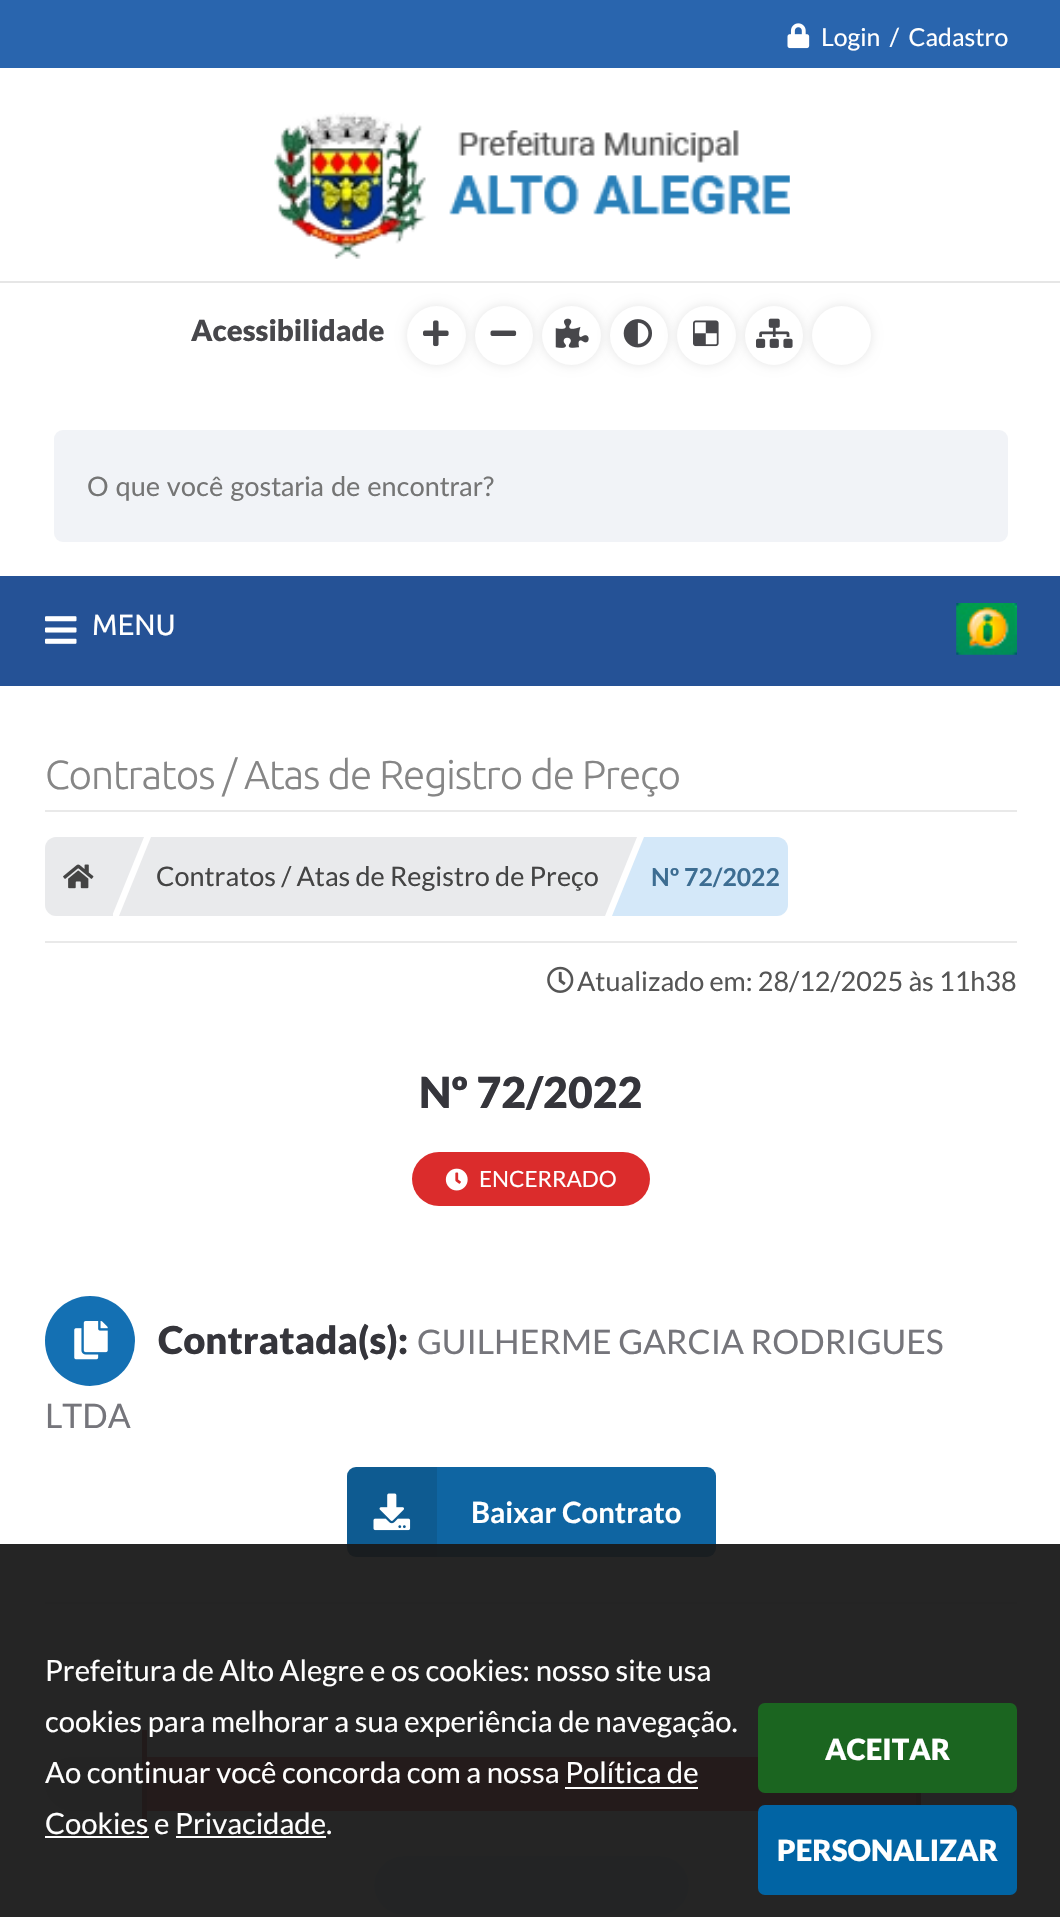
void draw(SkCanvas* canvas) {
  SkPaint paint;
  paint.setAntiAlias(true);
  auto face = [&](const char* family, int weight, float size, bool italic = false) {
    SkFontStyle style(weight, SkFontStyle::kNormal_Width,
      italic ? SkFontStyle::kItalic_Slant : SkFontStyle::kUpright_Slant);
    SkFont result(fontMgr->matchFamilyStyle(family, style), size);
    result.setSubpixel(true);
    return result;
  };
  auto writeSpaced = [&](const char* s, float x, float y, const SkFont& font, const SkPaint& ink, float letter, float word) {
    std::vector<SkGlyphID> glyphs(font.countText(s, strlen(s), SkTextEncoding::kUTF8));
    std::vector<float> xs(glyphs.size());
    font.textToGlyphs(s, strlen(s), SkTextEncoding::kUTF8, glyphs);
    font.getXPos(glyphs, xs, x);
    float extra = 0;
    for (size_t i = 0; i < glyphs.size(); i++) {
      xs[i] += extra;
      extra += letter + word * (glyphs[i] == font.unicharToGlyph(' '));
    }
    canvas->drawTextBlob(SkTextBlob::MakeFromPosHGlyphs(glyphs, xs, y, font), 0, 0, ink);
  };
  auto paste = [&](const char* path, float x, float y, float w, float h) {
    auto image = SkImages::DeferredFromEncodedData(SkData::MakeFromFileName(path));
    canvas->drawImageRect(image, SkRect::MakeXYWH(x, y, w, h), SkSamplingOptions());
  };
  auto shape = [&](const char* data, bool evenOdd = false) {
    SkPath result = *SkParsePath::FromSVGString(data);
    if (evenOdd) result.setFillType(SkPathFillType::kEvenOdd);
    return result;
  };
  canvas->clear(0xffffffff);
  paint.setColor(0xff2965ae);
  canvas->drawRect(SkRect::MakeXYWH(0, 0, 1060, 68), paint);
  paste("img/1.png", 787, 23, 23, 26);
  paint.setColor(0xffdfe1e4);
  canvas->drawRect(SkRect::MakeXYWH(45, 1602, 972, 2), paint);
  paint.setColor(0xff0f65a2);
  canvas->drawRoundRect(SkRect::MakeXYWH(347, 1467, 369, 90), 9, 9, paint);
  paint.setColor(0x1a000000);
  canvas->drawPath(shape("M356 1467H437V1557H356C351 1557 347 1553 347 1548V1476C347 1471 351 1467 356 1467Z"), paint);
  paint.setColor(0xffe3e4e6);
  canvas->drawRoundRect(SkRect::MakeXYWH(45, 1757, 972, 54), 27, 27, paint);
  {
    const struct { float x, y, w, h; SkColor color; } items[] = {
      {916, 1793, 5, 12, 0xffa42121},
      {142, 1730, 5, 108, 0xffa42121},
      {147, 1757, 769, 54, 0xffdb2c2c},
    };
    for (auto [x, y, w, h, color] : items) {
      paint.setColor(color);
      canvas->drawRect(SkRect::MakeXYWH(x, y, w, h), paint);
    }
  }
  paint.setColor(0xffd5ecff);
  canvas->drawRoundRect(SkRect::MakeXYWH(374, 1856, 315, 59), 29.5f, 29.5f, paint);
  {
    const struct { float x, y, w, h; SkColor color; } items[] = {
      {0, 1544, 1060, 373, 0xf2191919},
      {565, 1787, 133, 2, 0xffffffff},
      {45, 1836, 104, 2, 0xffffffff},
      {176, 1836, 150, 2, 0xffffffff},
    };
    for (auto [x, y, w, h, color] : items) {
      paint.setColor(color);
      canvas->drawRect(SkRect::MakeXYWH(x, y, w, h), paint);
    }
  }
  paint.setColor(0xff1b6520);
  canvas->drawRoundRect(SkRect::MakeXYWH(758, 1703, 259, 90), 7, 7, paint);
  paint.setColor(0xff0164a4);
  canvas->drawRoundRect(SkRect::MakeXYWH(758, 1805, 259, 90), 7, 7, paint);
  paste("img/2.png", 274, 112, 516, 147);
  paint.setColor(0xffe6e6e6);
  canvas->drawRect(SkRect::MakeXYWH(0, 281, 1060, 2), paint);
  paint.setColor(0x1a000000);
  paint.setMaskFilter(SkMaskFilter::MakeBlur(kNormal_SkBlurStyle, 5.5f));
  canvas->drawRoundRect(SkRect::MakeXYWH(407, 306, 59, 59), 29.5f, 29.5f, paint);
  paint.setMaskFilter(nullptr);
  paint.setColor(0xffffffff);
  canvas->drawCircle(436.5f, 335.5f, 29.5f, paint);
  paste("img/3.png", 423, 320, 26, 27);
  paint.setColor(0x1a000000);
  paint.setMaskFilter(SkMaskFilter::MakeBlur(kNormal_SkBlurStyle, 5.5f));
  canvas->drawRoundRect(SkRect::MakeXYWH(475, 306, 58, 59), 29, 29, paint);
  paint.setMaskFilter(nullptr);
  paint.setColor(0xffffffff);
  canvas->drawRoundRect(SkRect::MakeXYWH(475, 306, 58, 59), 29, 29, paint);
  paste("img/4.png", 490, 330, 27, 6);
  paint.setColor(0x1a000000);
  paint.setMaskFilter(SkMaskFilter::MakeBlur(kNormal_SkBlurStyle, 5.5f));
  canvas->drawRoundRect(SkRect::MakeXYWH(542, 306, 59, 59), 29.5f, 29.5f, paint);
  paint.setMaskFilter(nullptr);
  paint.setColor(0xffffffff);
  canvas->drawCircle(571.5f, 335.5f, 29.5f, paint);
  paste("img/5.png", 555, 318, 34, 30);
  paint.setColor(0x1a000000);
  paint.setMaskFilter(SkMaskFilter::MakeBlur(kNormal_SkBlurStyle, 5.5f));
  canvas->drawRoundRect(SkRect::MakeXYWH(610, 306, 58, 59), 29, 29, paint);
  paint.setMaskFilter(nullptr);
  paint.setColor(0xffffffff);
  canvas->drawRoundRect(SkRect::MakeXYWH(610, 306, 58, 59), 29, 29, paint);
  paste("img/6.png", 623, 319, 29, 29);
  paint.setColor(0x1a000000);
  paint.setMaskFilter(SkMaskFilter::MakeBlur(kNormal_SkBlurStyle, 5.5f));
  canvas->drawRoundRect(SkRect::MakeXYWH(677, 306, 59, 59), 29.5f, 29.5f, paint);
  paint.setMaskFilter(nullptr);
  paint.setColor(0xffffffff);
  canvas->drawCircle(706.5f, 335.5f, 29.5f, paint);
  paste("img/7.png", 693, 320, 26, 27);
  paint.setColor(0x1a000000);
  paint.setMaskFilter(SkMaskFilter::MakeBlur(kNormal_SkBlurStyle, 5.5f));
  canvas->drawRoundRect(SkRect::MakeXYWH(745, 306, 58, 59), 29, 29, paint);
  paint.setMaskFilter(nullptr);
  paint.setColor(0xffffffff);
  canvas->drawRoundRect(SkRect::MakeXYWH(745, 306, 58, 59), 29, 29, paint);
  paste("img/8.png", 756, 318, 37, 30);
  paint.setColor(0x1a000000);
  paint.setMaskFilter(SkMaskFilter::MakeBlur(kNormal_SkBlurStyle, 5.5f));
  canvas->drawRoundRect(SkRect::MakeXYWH(812, 306, 59, 59), 29.5f, 29.5f, paint);
  paint.setMaskFilter(nullptr);
  paint.setColor(0xffffffff);
  canvas->drawCircle(841.5f, 335.5f, 29.5f, paint);
  paint.setColor(0xfff1f3f7);
  canvas->drawRoundRect(SkRect::MakeXYWH(54, 430, 954, 112), 9, 9, paint);
  paint.setColor(0xff255296);
  canvas->drawRect(SkRect::MakeXYWH(0, 576, 1060, 110), paint);
  paste("img/9.png", 45, 616, 32, 28);
  paste("img/10.png", 956, 603, 61, 52);
  paint.setColor(0xffe9e9e9);
  canvas->drawRect(SkRect::MakeXYWH(45, 810, 972, 2), paint);
  canvas->drawRect(SkRect::MakeXYWH(45, 941, 972, 2), paint);
  paint.setColor(0xffe9eaec);
  canvas->drawPath(shape("M56 837H113V916H56C50 916 45 911 45 905V848C45 842 50 837 56 837Z"), paint);
  paste("img/11.png", 63, 864, 31, 25);
  canvas->drawPath(shape("M112 837H144L112 916Z"), paint);
  canvas->drawRect(SkRect::MakeXYWH(151, 837, 454, 79), paint);
  canvas->drawPath(shape("M151 916H119L151 837Z"), paint);
  canvas->drawPath(shape("M605 837H637L605 916Z"), paint);
  paint.setColor(0xffd4e8f9);
  canvas->drawPath(shape("M644 837H777C783 837 788 842 788 848V905C788 911 783 916 777 916H644Z"), paint);
  canvas->drawPath(shape("M644 916H612L644 837Z"), paint);
  paste("img/12.png", 547, 966, 27, 27);
  paint.setColor(0xffdb2c2c);
  canvas->drawRoundRect(SkRect::MakeXYWH(412, 1152, 238, 54), 27, 27, paint);
  paste("img/13.png", 445, 1168, 23, 23);
  paint.setColor(0xff1470b3);
  canvas->drawCircle(90, 1341, 45, paint);
  paste("img/14.png", 74, 1321, 34, 39);
  paste("img/15.png", 373, 1493, 38, 38);
  auto f0 = face("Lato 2", 400, 24.75f);
  paint.setColor(0xffffffff);
  canvas->drawString("Login  /  Cadastro", 821, 46, f0, paint);
  auto f1 = face("Lato 2", 400, 29.25f);
  {
    const struct { const char* s; float x, y; } items[] = {
      {"Prefeitura de Alto Alegre e os cookies: nosso site usa", 45, 1681},
      {"cookies para melhorar a sua experiência de navegação.", 45, 1732},
      {"Ao continuar você concorda com a nossa Política de", 45, 1783},
      {"Cookies e Privacidade.", 45, 1834},
    };
    for (auto [s, x, y] : items) {
      canvas->drawString(s, x, y, f1, paint);
    }
  }
  auto f2 = face("Lato", 900, 29.25f);
  canvas->drawString("ACEITAR", 825, 1760, f2, paint);
  canvas->drawString("PERSONALIZAR", 777, 1861, f2, paint);
  paint.setColor(0xff47474b);
  canvas->drawString("Acessibilidade", 191, 341, f2, paint);
  auto f3 = face("Lato", 400, 27);
  paint.setColor(0xff757575);
  canvas->drawString("O que você gostaria de encontrar?", 87, 496, f3, paint);
  auto f4 = face("Ubuntu", 400, 29.25f);
  paint.setColor(0xffffffff);
  canvas->drawString("MENU", 92, 635, f4, paint);
  auto f5 = face("Ubuntu", 300, 40.5f);
  paint.setColor(0xff868686);
  writeSpaced("Contratos / Atas de Registro de Preço", 45, 789, f5, paint, -1.1f, 0);
  auto f6 = face("Lato 2", 400, 27);
  paint.setColor(0xff444444);
  canvas->drawString("Contratos / Atas de Registro de Preço", 156, 886, f6, paint);
  auto f7 = face("Lato", 700, 24.75f);
  paint.setColor(0xff3d6d92);
  canvas->drawString("Nº 72/2022", 651, 886, f7, paint);
  paint.setColor(0xff555555);
  canvas->drawString("Atualizado em: 28/12/2025 às 11h38", 577, 991, f6, paint);
  auto f8 = face("Lato", 900, 42.75f);
  paint.setColor(0xff35353b);
  canvas->drawString("Nº 72/2022", 419, 1108, f8, paint);
  auto f9 = face("Lato 2", 400, 22.5f);
  paint.setColor(0xffffffff);
  canvas->drawString("ENCERRADO", 479, 1187, f9, paint);
  auto f10 = face("Lato", 900, 38.25f);
  paint.setColor(0xff35353b);
  canvas->drawString("Contratada(s):", 158, 1354, f10, paint);
  auto f11 = face("Lato 2", 400, 33.75f);
  paint.setColor(0xff75757b);
  canvas->drawString("GUILHERME GARCIA RODRIGUES", 417, 1354, f11, paint);
  canvas->drawString("LTDA", 45, 1428, f11, paint);
  auto f12 = face("Lato", 700, 29.25f);
  paint.setColor(0xffffffff);
  canvas->drawString("Baixar Contrato", 471, 1523, f12, paint);
}
